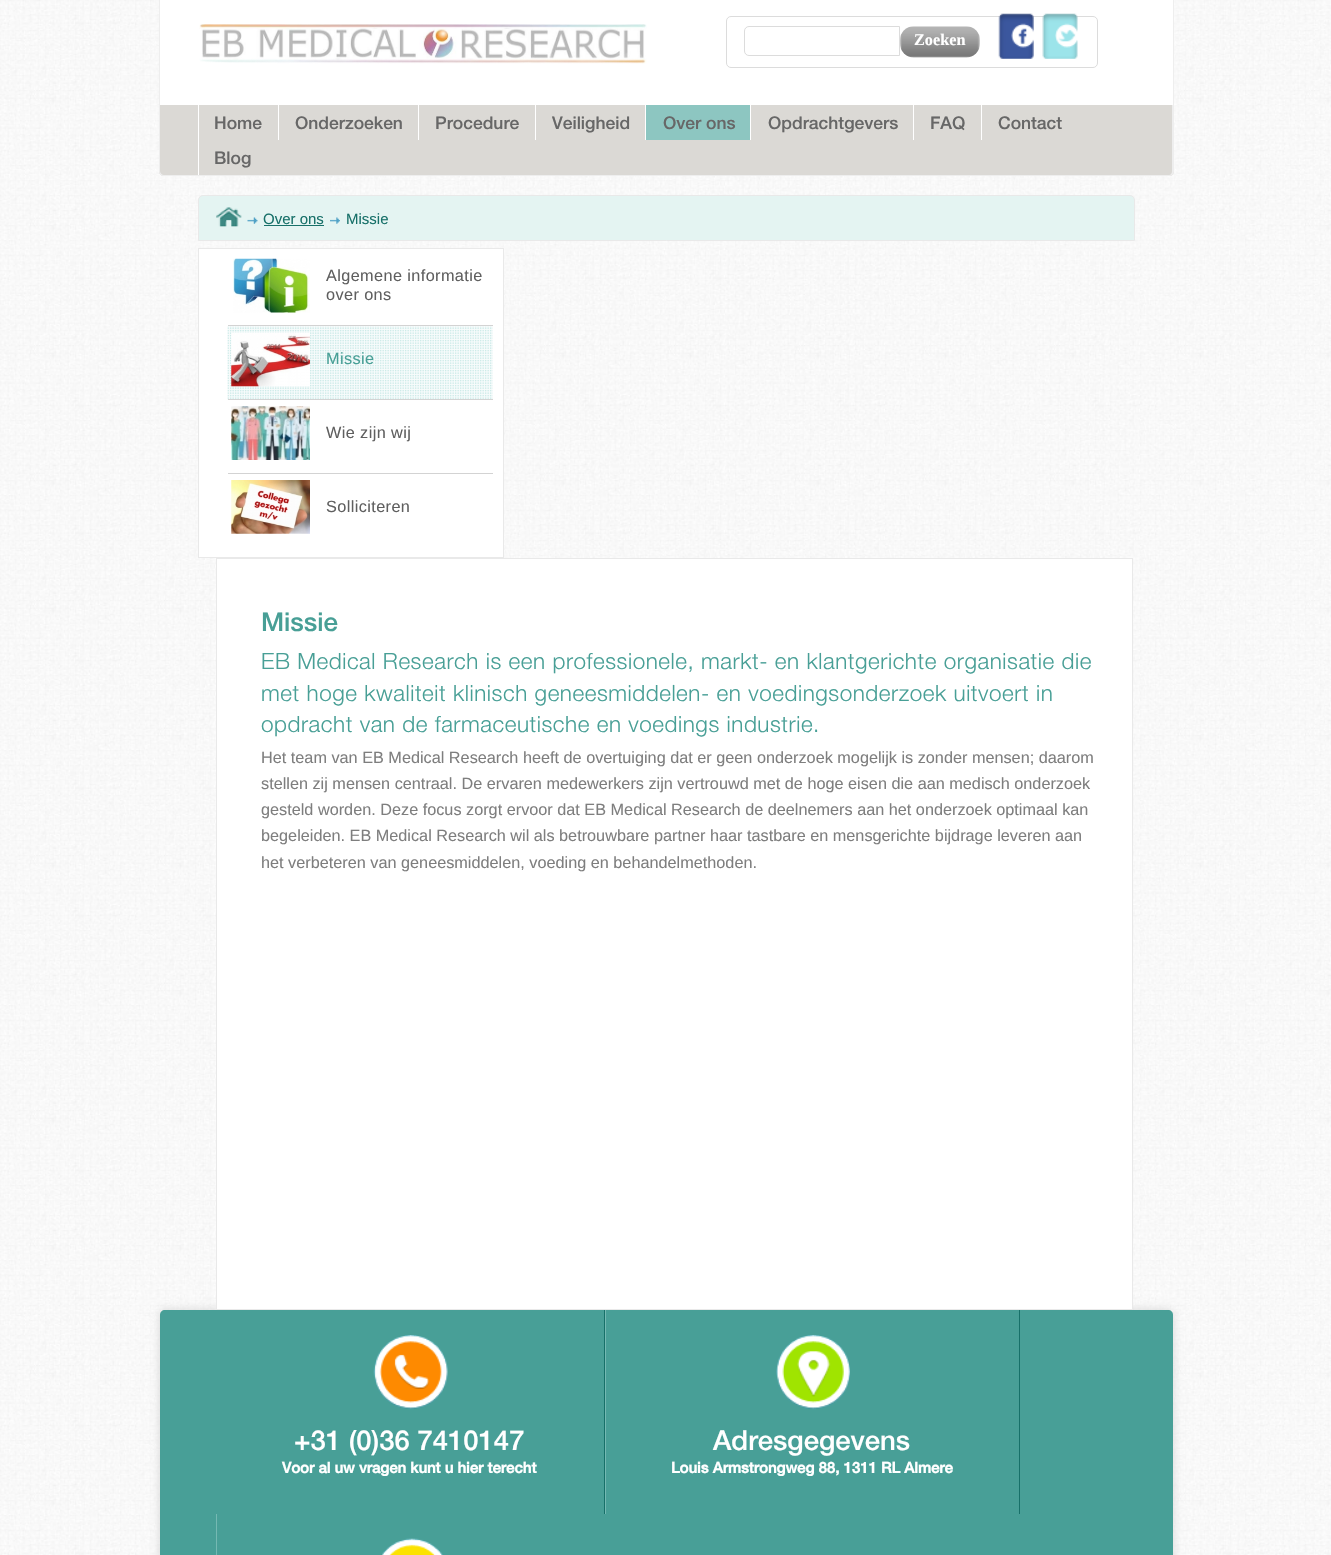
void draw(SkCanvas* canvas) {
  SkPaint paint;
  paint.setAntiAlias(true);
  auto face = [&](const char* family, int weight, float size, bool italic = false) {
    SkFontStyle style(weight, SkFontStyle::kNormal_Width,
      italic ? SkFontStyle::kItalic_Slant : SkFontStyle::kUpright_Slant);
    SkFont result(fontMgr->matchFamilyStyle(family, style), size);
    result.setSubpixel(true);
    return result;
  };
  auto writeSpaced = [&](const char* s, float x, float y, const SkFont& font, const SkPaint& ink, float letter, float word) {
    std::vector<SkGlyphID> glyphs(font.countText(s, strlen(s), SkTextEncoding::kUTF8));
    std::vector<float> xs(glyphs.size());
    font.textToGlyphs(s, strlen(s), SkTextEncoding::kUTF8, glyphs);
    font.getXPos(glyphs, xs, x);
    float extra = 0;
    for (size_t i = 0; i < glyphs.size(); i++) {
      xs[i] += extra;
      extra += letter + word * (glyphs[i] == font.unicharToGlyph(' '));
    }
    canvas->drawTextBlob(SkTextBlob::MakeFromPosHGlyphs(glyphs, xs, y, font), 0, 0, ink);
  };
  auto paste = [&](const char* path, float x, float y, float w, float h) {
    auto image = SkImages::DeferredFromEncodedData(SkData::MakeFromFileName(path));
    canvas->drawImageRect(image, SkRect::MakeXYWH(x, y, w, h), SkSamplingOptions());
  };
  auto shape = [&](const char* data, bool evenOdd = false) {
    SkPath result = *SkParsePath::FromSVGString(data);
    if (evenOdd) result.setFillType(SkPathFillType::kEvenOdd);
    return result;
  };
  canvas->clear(0xffffffff);
  paste("img/1.png", 0, 0, 1331, 1555);
  {
    const struct { float x, y, w, h; SkColor color; } items[] = {
      {160, 0, 1013, 105, 0xffffffff},
      {1173, 0, 1, 105, 0xffeeeeee},
      {159, 0, 1, 105, 0xffeeeeee},
    };
    for (auto [x, y, w, h, color] : items) {
      paint.setColor(color);
      canvas->drawRect(SkRect::MakeXYWH(x, y, w, h), paint);
    }
  }
  paste("img/2.png", 199, 24, 448, 40);
  paint.setStroke(true);
  paint.setStrokeWidth(1);
  paint.setColor(0xffdcdcdc);
  canvas->drawRoundRect(SkRect::MakeXYWH(726.5f, 16.5f, 371, 51), 4.5f, 4.5f, paint);
  canvas->drawPath(shape("M749 26.5H899.5V55.5H749C746.5 55.5 744.5 53.5 744.5 51V31C744.5 28.5 746.5 26.5 749 26.5Z"), paint);
  paste("img/3.png", 900, 26, 80, 32);
  paste("img/4.png", 998, 13, 36, 46);
  paste("img/5.png", 1042, 13, 36, 46);
  paint.setStroke(false);
  paint.setColor(0xffdbd9d5);
  canvas->drawPath(shape("M159 105H1174V171C1174 174 1172 176 1169 176H164C161 176 159 174 159 171Z"), paint);
  paint.setColor(0xffeeeeee);
  canvas->drawPath(shape("M159 105H1174V171C1174 174 1172 176 1169 176H164C161 176 159 174 159 171ZM160 105H1172V171C1172 173 1171 175 1169 175H164C162 175 160 173 160 171Z", true), paint);
  {
    const struct { float x, y, w, h; SkColor color; } items[] = {
      {198, 105, 1, 70, 0xffffffff},
      {278, 105, 1, 35, 0xffffffff},
      {418, 105, 1, 35, 0xffffffff},
      {535, 105, 1, 35, 0xffffffff},
      {646, 105, 104, 35, 0xff8dc6c1},
      {645, 105, 1, 35, 0xffffffff},
      {750, 105, 1, 35, 0xffffffff},
      {913, 105, 1, 35, 0xffffffff},
      {981, 105, 1, 35, 0xffffffff},
    };
    for (auto [x, y, w, h, color] : items) {
      paint.setColor(color);
      canvas->drawRect(SkRect::MakeXYWH(x, y, w, h), paint);
    }
  }
  paint.setColor(0xffe4f4f2);
  canvas->drawPath(shape("M203 195.5H1130C1132.5 195.5 1134.5 197.5 1134.5 200V240.5H198.5V200C198.5 197.5 200.5 195.5 203 195.5Z"), paint);
  paint.setStroke(true);
  paint.setColor(0xffe9e9e9);
  canvas->drawPath(shape("M203 195.5H1130C1132.5 195.5 1134.5 197.5 1134.5 200V240.5H198.5V200C198.5 197.5 200.5 195.5 203 195.5Z"), paint);
  paste("img/6.png", 216, 207, 26, 20);
  paste("img/7.png", 247, 217, 11, 7);
  paint.setStroke(false);
  paint.setColor(0xff177069);
  canvas->drawRect(SkRect::MakeXYWH(264, 225, 60, 1), paint);
  paste("img/8.png", 330, 217, 10, 7);
  paint.setColor(0xffffffff);
  canvas->drawRect(SkRect::MakeXYWH(198.5f, 248.5f, 305, 309), paint);
  paint.setStroke(true);
  paint.setColor(0xffe9e9e9);
  canvas->drawRect(SkRect::MakeXYWH(198.5f, 248.5f, 305, 309), paint);
  paint.setStroke(false);
  paint.setColor(0xffd3d3d3);
  canvas->drawRect(SkRect::MakeXYWH(228, 325, 265, 1), paint);
  paste("img/9.png", 233, 258, 77, 55);
  paste("img/10.png", 227, 326, 266, 74);
  canvas->drawRect(SkRect::MakeXYWH(228, 399, 265, 1), paint);
  paste("img/11.png", 231, 332, 79, 55);
  canvas->drawRect(SkRect::MakeXYWH(228, 473, 265, 1), paint);
  paste("img/12.png", 231, 406, 79, 54);
  paste("img/13.png", 231, 480, 79, 54);
  paint.setColor(0xffd6d6d6);
  paint.setMaskFilter(SkMaskFilter::MakeBlur(kNormal_SkBlurStyle, 5));
  canvas->drawRoundRect(SkRect::MakeXYWH(160, 1310, 1013, 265), 5, 5, paint);
  paint.setMaskFilter(nullptr);
  paint.setColor(0xffffffff);
  canvas->drawRect(SkRect::MakeXYWH(216.5f, 558.5f, 916, 751), paint);
  paint.setStroke(true);
  paint.setColor(0xffe9e9e9);
  canvas->drawRect(SkRect::MakeXYWH(216.5f, 558.5f, 916, 751), paint);
  paint.setStroke(false);
  paint.setColor(0xff489f97);
  canvas->drawPath(shape("M165 1310H1168C1171 1310 1173 1312 1173 1315V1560H160V1315C160 1312 162 1310 165 1310Z"), paint);
  paint.setColor(0xff177069);
  canvas->drawRect(SkRect::MakeXYWH(604, 1310, 1, 204), paint);
  paste("img/14.png", 373, 1335, 75, 75);
  canvas->drawRect(SkRect::MakeXYWH(1019, 1310, 1, 204), paint);
  paint.setColor(0xff75b9b3);
  canvas->drawRect(SkRect::MakeXYWH(605, 1310, 1, 204), paint);
  paste("img/15.png", 776, 1335, 74, 75);
  canvas->drawRect(SkRect::MakeXYWH(216, 1514, 1, 41), paint);
  paste("img/16.png", 382, 1538, 61, 17);
  auto f0 = face("Liberation Serif", 700, 16.25f);
  paint.setColor(0xffffffff);
  canvas->drawString("Zoeken", 914, 45, f0, paint);
  auto f1 = face("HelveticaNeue", 500, 17.5f);
  paint.setColor(0xff676767);
  {
    const struct { const char* s; float x, y; } items[] = {
      {"Home", 214, 129},
      {"Onderzoeken", 295, 129},
      {"Procedure", 435, 129},
      {"Veiligheid", 552, 129},
      {"Over ons", 663, 129},
      {"Opdrachtgevers", 768, 129},
      {"FAQ", 930, 129},
      {"Contact", 998, 129},
      {"Blog", 214, 164},
    };
    for (auto [s, x, y] : items) {
      canvas->drawString(s, x, y, f1, paint);
    }
  }
  auto f2 = face("Liberation Sans", 400, 15);
  paint.setColor(0xff177069);
  canvas->drawString("Over ons", 263, 224, f2, paint);
  canvas->drawString("Missie", 346, 224, f2, paint);
  auto f3 = face("Liberation Sans", 400, 16.25f);
  paint.setColor(0xff5f5f5f);
  writeSpaced("Algemene informatie", 326, 281, f3, paint, 0.4f, 0);
  writeSpaced("over ons", 326, 300, f3, paint, 0.4f, 0);
  paint.setColor(0xff489f96);
  writeSpaced("Missie", 326, 364, f3, paint, 0.4f, 0);
  paint.setColor(0xff5f5f5f);
  writeSpaced("Wie zijn wij", 326, 438, f3, paint, 0.4f, 0);
  writeSpaced("Solliciteren", 326, 512, f3, paint, 0.4f, 0);
  auto f4 = face("HelveticaNeue", 500, 26);
  paint.setColor(0xff489f96);
  canvas->drawString("Missie", 261, 631, f4, paint);
  auto f5 = face("HelveticaNeue", 300, 22.5f);
  {
    const struct { const char* s; float x, y; } items[] = {
      {"EB Medical Research is een professionele, markt- en klantgerichte organisatie die", 261, 669},
      {"met hoge kwaliteit klinisch geneesmiddelen- en voedingsonderzoek uitvoert in", 261, 701},
      {"opdracht van de farmaceutische en voedings industrie.", 261, 732},
    };
    for (auto [s, x, y] : items) {
      writeSpaced(s, x, y, f5, paint, 0.55f, 0);
    }
  }
  paint.setColor(0xff7e7e7e);
  {
    const struct { const char* s; float x, y; } items[] = {
      {"Het team van EB Medical Research heeft de overtuiging dat er geen onderzoek mogelijk is zonder mensen; daarom", 261, 763},
      {"stellen zij mensen centraal. De ervaren medewerkers zijn vertrouwd met de hoge eisen die aan medisch onderzoek", 261, 789},
      {"gesteld worden. Deze focus zorgt ervoor dat EB Medical Research de deelnemers aan het onderzoek optimaal kan", 261, 815},
      {"begeleiden. EB Medical Research wil als betrouwbare partner haar tastbare en mensgerichte bijdrage leveren aan", 261, 841},
      {"het verbeteren van geneesmiddelen, voeding en behandelmethoden.", 261, 868},
    };
    for (auto [s, x, y] : items) {
      canvas->drawString(s, x, y, f3, paint);
    }
  }
  auto f6 = face("HelveticaNeue", 500, 27.5f);
  paint.setColor(0xffffffff);
  canvas->drawString("+31 (0)36 7410147", 294, 1450, f6, paint);
  auto f7 = face("HelveticaNeue", 700, 15);
  canvas->drawString("Voor al uw vragen kunt u hier terecht", 282, 1473, f7, paint);
  canvas->drawString("Adresgegevens", 713, 1450, f6, paint);
  canvas->drawString("Louis Armstrongweg 88, 1311 RL Almere", 671, 1473, f7, paint);
}
